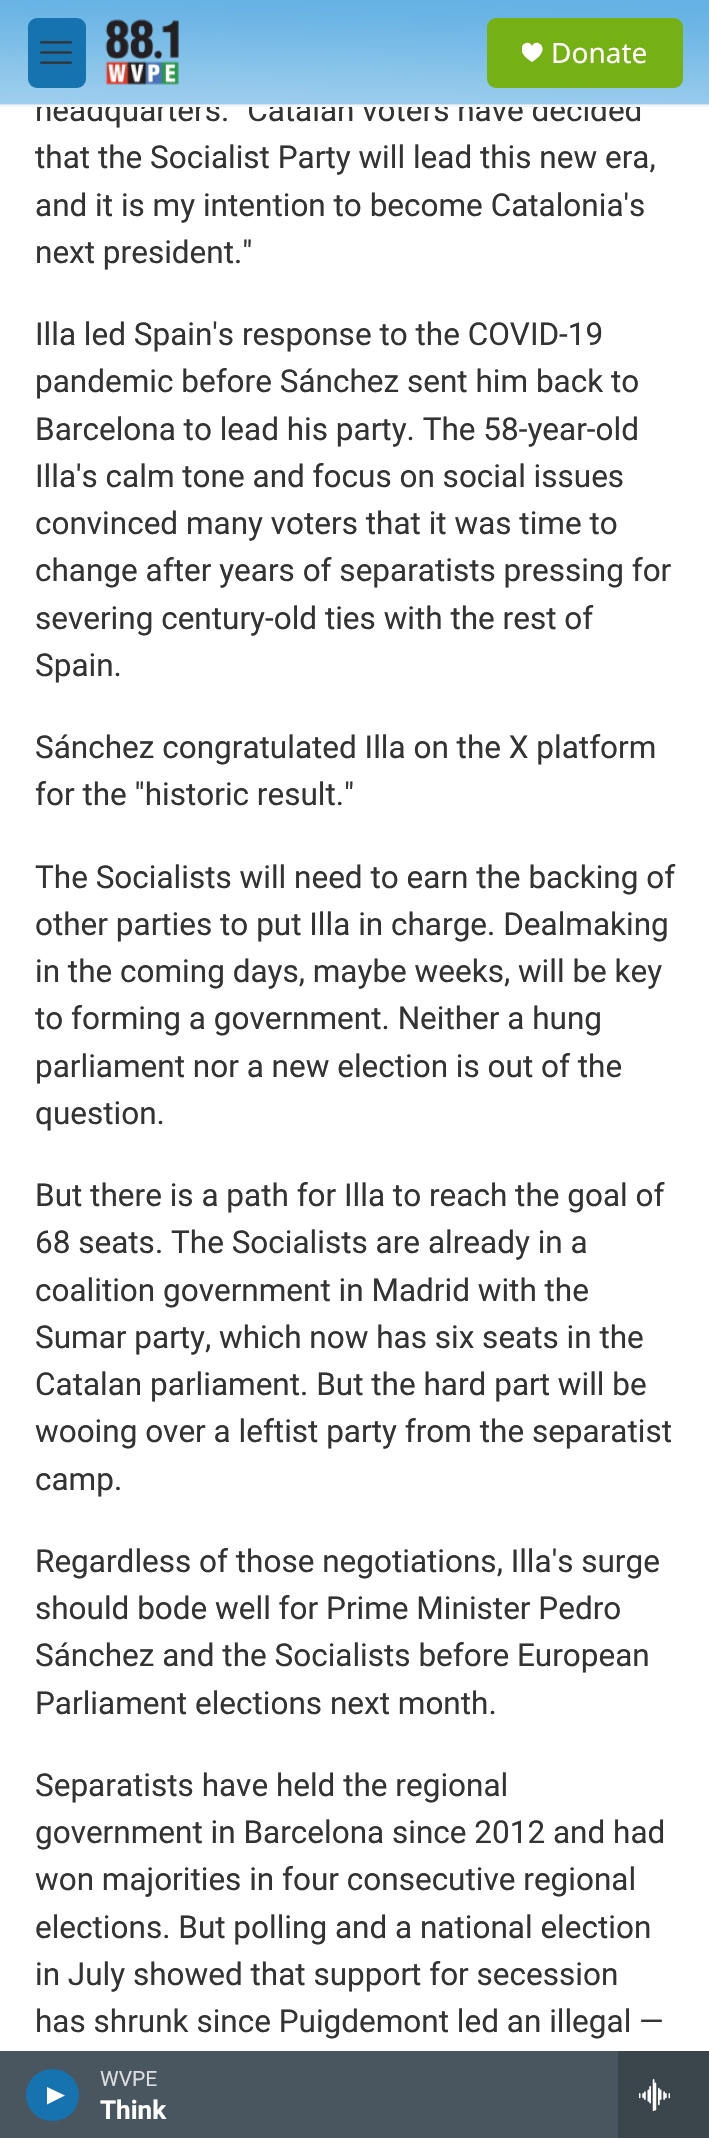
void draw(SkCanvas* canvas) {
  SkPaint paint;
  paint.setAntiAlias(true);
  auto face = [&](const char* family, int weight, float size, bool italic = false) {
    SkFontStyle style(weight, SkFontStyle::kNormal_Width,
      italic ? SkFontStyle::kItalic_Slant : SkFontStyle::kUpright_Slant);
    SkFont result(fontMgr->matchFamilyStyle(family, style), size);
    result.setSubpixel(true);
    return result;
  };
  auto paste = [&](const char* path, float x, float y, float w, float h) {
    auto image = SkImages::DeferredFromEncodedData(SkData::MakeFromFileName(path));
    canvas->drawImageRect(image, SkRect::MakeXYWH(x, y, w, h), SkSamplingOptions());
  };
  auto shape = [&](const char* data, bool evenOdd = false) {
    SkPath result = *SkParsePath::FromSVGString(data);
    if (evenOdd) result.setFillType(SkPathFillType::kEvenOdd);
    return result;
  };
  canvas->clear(0xffffffff);
  paint.setColor(0xff49565f);
  canvas->drawRect(SkRect::MakeXYWH(0, 2051, 618, 87), paint);
  paint.setColor(0xff1772b0);
  canvas->drawRoundRect(SkRect::MakeXYWH(26, 2069, 53, 52), 26, 26, paint);
  paint.setColor(0xffffffff);
  canvas->drawPath(shape("M47 2087L65 2095.5L47 2104.5Z"), paint);
  paint.setColor(0xff3a454c);
  canvas->drawRect(SkRect::MakeXYWH(618, 2051, 91, 87), paint);
  paste("img/4.png", 639, 2079, 31, 32);
  auto f0 = face("Roboto", 400, 21);
  paint.setColor(0xffdbdddf);
  canvas->drawString("WVPE", 100, 2086, f0, paint);
  auto f1 = face("Roboto", 700, 26);
  paint.setColor(0xffffffff);
  canvas->drawString("Think", 100, 2119, f1, paint);
  auto f2 = face("Roboto", 400, 31.5f);
  paint.setColor(0xff333333);
  canvas->drawString("headquarters. \"Catalan voters have decided", 35, 121, f2, paint);
  paint.setColor(0xffffffff);
  canvas->drawRect(SkRect::MakeXYWH(37, 104, 604, 1), paint);
  paste("img/1.png", 0, 0, 709, 105);
  paint.setColor(0xff1772b0);
  canvas->drawRoundRect(SkRect::MakeXYWH(28, 18, 58, 70), 9, 9, paint);
  paste("img/2.png", 40, 41, 32, 23);
  paste("img/3.png", 105, 19, 74, 66);
  paint.setColor(0xff75b115);
  canvas->drawRoundRect(SkRect::MakeXYWH(487, 18, 196, 70), 9, 9, paint);
  canvas->save();
  canvas->clipRect(SkRect::MakeXYWH(522, 42, 21, 21));
  paint.setColor(0xffffffff);
  canvas->drawPath(shape("M532 46C528.5 37 510 48.5 532 62C554 48.5 535.5 37 532 46Z"), paint);
  canvas->restore();
  auto f3 = face("Noto Sans", 400, 28);
  canvas->drawString("Donate", 551, 63, f3, paint);
  paint.setColor(0xfff5f5f5);
  canvas->drawRect(SkRect::MakeXYWH(0, 105, 709, 2), paint);
  paint.setColor(0xff333333);
  {
    const struct { const char* s; float x, y; } items[] = {
      {"that the Socialist Party will lead this new era,", 35, 168},
      {"and it is my intention to become Catalonia's", 35, 216},
      {"next president.\"", 35, 263},
      {"Illa led Spain's response to the COVID-19", 35, 345},
      {"pandemic before Sánchez sent him back to", 35, 392},
      {"Barcelona to lead his party. The 58-year-old", 35, 440},
      {"Illa's calm tone and focus on social issues", 35, 487},
      {"convinced many voters that it was time to", 35, 534},
      {"change after years of separatists pressing for", 35, 581},
      {"severing century-old ties with the rest of", 35, 629},
      {"Spain.", 35, 676},
      {"Sánchez congratulated Illa on the X platform", 35, 758},
      {"for the \"historic result.\"", 35, 805},
      {"The Socialists will need to earn the backing of", 35, 888},
      {"other parties to put Illa in charge. Dealmaking", 35, 935},
      {"in the coming days, maybe weeks, will be key", 35, 982},
      {"to forming a government. Neither a hung", 35, 1029},
      {"parliament nor a new election is out of the", 35, 1077},
      {"question.", 35, 1124},
      {"But there is a path for Illa to reach the goal of", 35, 1206},
      {"68 seats. The Socialists are already in a", 35, 1253},
      {"coalition government in Madrid with the", 35, 1301},
      {"Sumar party, which now has six seats in the", 35, 1348},
      {"Catalan parliament. But the hard part will be", 35, 1395},
      {"wooing over a leftist party from the separatist", 35, 1442},
      {"camp.", 35, 1490},
      {"Regardless of those negotiations, Illa's surge", 35, 1572},
      {"should bode well for Prime Minister Pedro", 35, 1619},
      {"Sánchez and the Socialists before European", 35, 1666},
      {"Parliament elections next month.", 35, 1714},
      {"Separatists have held the regional", 35, 1796},
      {"government in Barcelona since 2012 and had", 35, 1843},
      {"won majorities in four consecutive regional", 35, 1890},
      {"elections. But polling and a national election", 35, 1938},
      {"in July showed that support for secession", 35, 1985},
      {"has shrunk since Puigdemont led an illegal —", 35, 2032},
    };
    for (auto [s, x, y] : items) {
      canvas->drawString(s, x, y, f2, paint);
    }
  }
}
